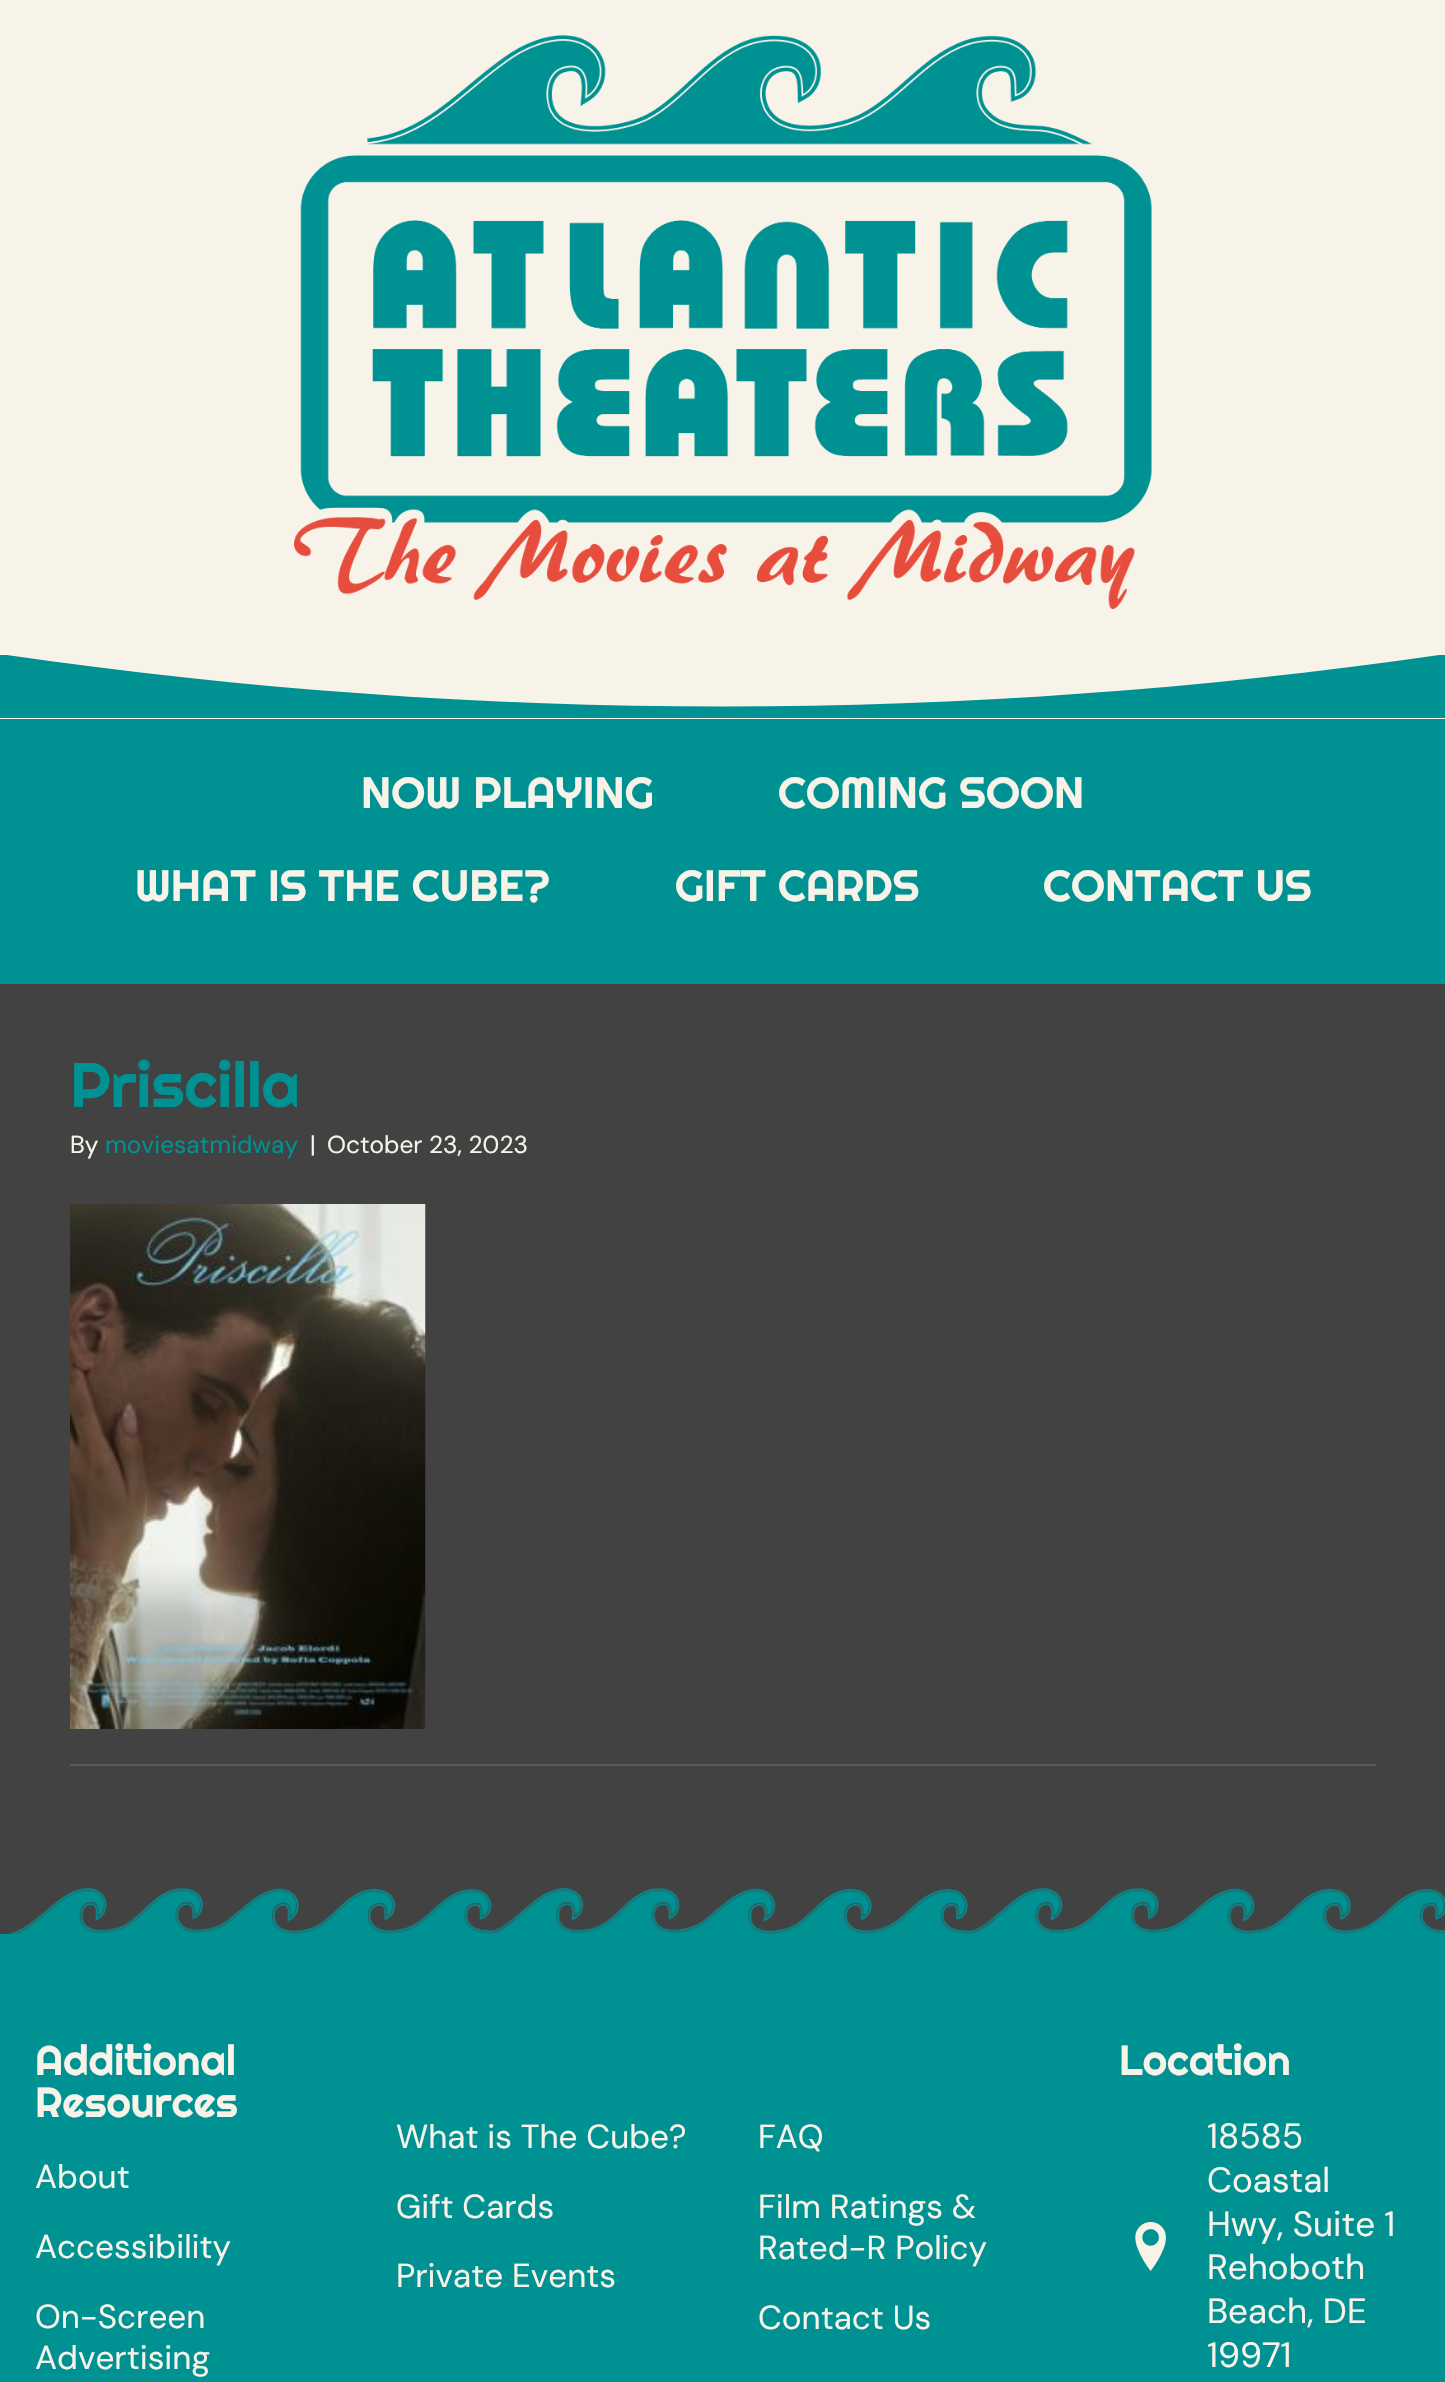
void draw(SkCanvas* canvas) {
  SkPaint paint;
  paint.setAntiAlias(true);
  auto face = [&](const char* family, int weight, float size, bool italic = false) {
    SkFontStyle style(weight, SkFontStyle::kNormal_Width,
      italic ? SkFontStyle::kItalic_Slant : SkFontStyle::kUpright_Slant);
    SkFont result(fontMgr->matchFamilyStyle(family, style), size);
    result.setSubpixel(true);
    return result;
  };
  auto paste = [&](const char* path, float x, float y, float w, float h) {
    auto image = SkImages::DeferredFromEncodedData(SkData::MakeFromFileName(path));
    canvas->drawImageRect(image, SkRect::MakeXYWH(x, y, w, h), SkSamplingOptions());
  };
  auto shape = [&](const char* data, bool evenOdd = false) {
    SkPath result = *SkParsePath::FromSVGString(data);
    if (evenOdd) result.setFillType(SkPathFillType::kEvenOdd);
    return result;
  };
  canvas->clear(0xff424242);
  paint.setColor(0xfff8f3e9);
  canvas->drawRect(SkRect::MakeXYWH(0, 0, 1445, 719), paint);
  paste("img/1.png", 294, 35, 858, 574);
  canvas->save();
  canvas->clipRect(SkRect::MakeXYWH(0, 655, 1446, 64));
  paint.setColor(0xff009193);
  canvas->drawPath(shape("M0 718H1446V654C967 724 479 724 0 654Z"), paint);
  canvas->restore();
  canvas->drawRect(SkRect::MakeXYWH(0, 719, 1445, 265), paint);
  paste("img/2.png", 70, 1204, 356, 525);
  paint.setColor(0xff595959);
  canvas->drawRect(SkRect::MakeXYWH(70, 1764, 1306, 2), paint);
  paste("img/3.png", 8, 1888, 1437, 46);
  paint.setColor(0xff009193);
  canvas->drawRect(SkRect::MakeXYWH(0, 1934, 1445, 448), paint);
  paste("img/4.png", 1135, 2222, 31, 49);
  auto f0 = face("Righteous", 400, 43.75f);
  paint.setColor(0xfff8f3e9);
  {
    const struct { const char* s; float x, y; } items[] = {
      {"NOW PLAYING", 361, 808},
      {"COMING SOON", 778, 808},
      {"WHAT IS THE CUBE?", 135, 901},
      {"GIFT CARDS", 675, 901},
      {"CONTACT US", 1043, 901},
    };
    for (auto [s, x, y] : items) {
      canvas->drawString(s, x, y, f0, paint);
    }
  }
  auto f1 = face("Righteous", 400, 63);
  paint.setColor(0xff009193);
  canvas->drawString("Priscilla", 70, 1107, f1, paint);
  auto f2 = face("DM Sans", 400, 24.5f);
  paint.setColor(0xfff8f3e9);
  canvas->drawString("By", 70, 1153, f2, paint);
  paint.setColor(0xff009193);
  canvas->drawString("moviesatmidway", 105, 1153, f2, paint);
  paint.setColor(0xfff8f3e9);
  canvas->drawString("|", 310, 1153, f2, paint);
  canvas->drawString("October 23, 2023", 327, 1153, f2, paint);
  auto f3 = face("Righteous", 400, 42);
  canvas->drawString("Additional", 35, 2075, f3, paint);
  canvas->drawString("Resources", 35, 2117, f3, paint);
  auto f4 = face("DM Sans", 400, 33.25f);
  {
    const struct { const char* s; float x, y; } items[] = {
      {"About", 35, 2188},
      {"Accessibility", 35, 2258},
      {"On-Screen", 35, 2328},
      {"Advertising", 35, 2369},
      {"What is The Cube?", 396, 2148},
      {"Gift Cards", 396, 2218},
      {"Private Events", 396, 2287},
      {"FAQ", 758, 2148},
      {"Film Ratings &", 758, 2218},
      {"Rated-R Policy", 758, 2259},
      {"Contact Us", 758, 2329},
    };
    for (auto [s, x, y] : items) {
      canvas->drawString(s, x, y, f4, paint);
    }
  }
  canvas->drawString("Location", 1119, 2075, f3, paint);
  auto f5 = face("DM Sans", 400, 35);
  {
    const struct { const char* s; float x, y; } items[] = {
      {"18585", 1207, 2148},
      {"Coastal", 1207, 2192},
      {"Hwy, Suite 1", 1207, 2236},
      {"Rehoboth", 1207, 2279},
      {"Beach, DE", 1207, 2323},
      {"19971", 1207, 2367},
    };
    for (auto [s, x, y] : items) {
      canvas->drawString(s, x, y, f5, paint);
    }
  }
}
